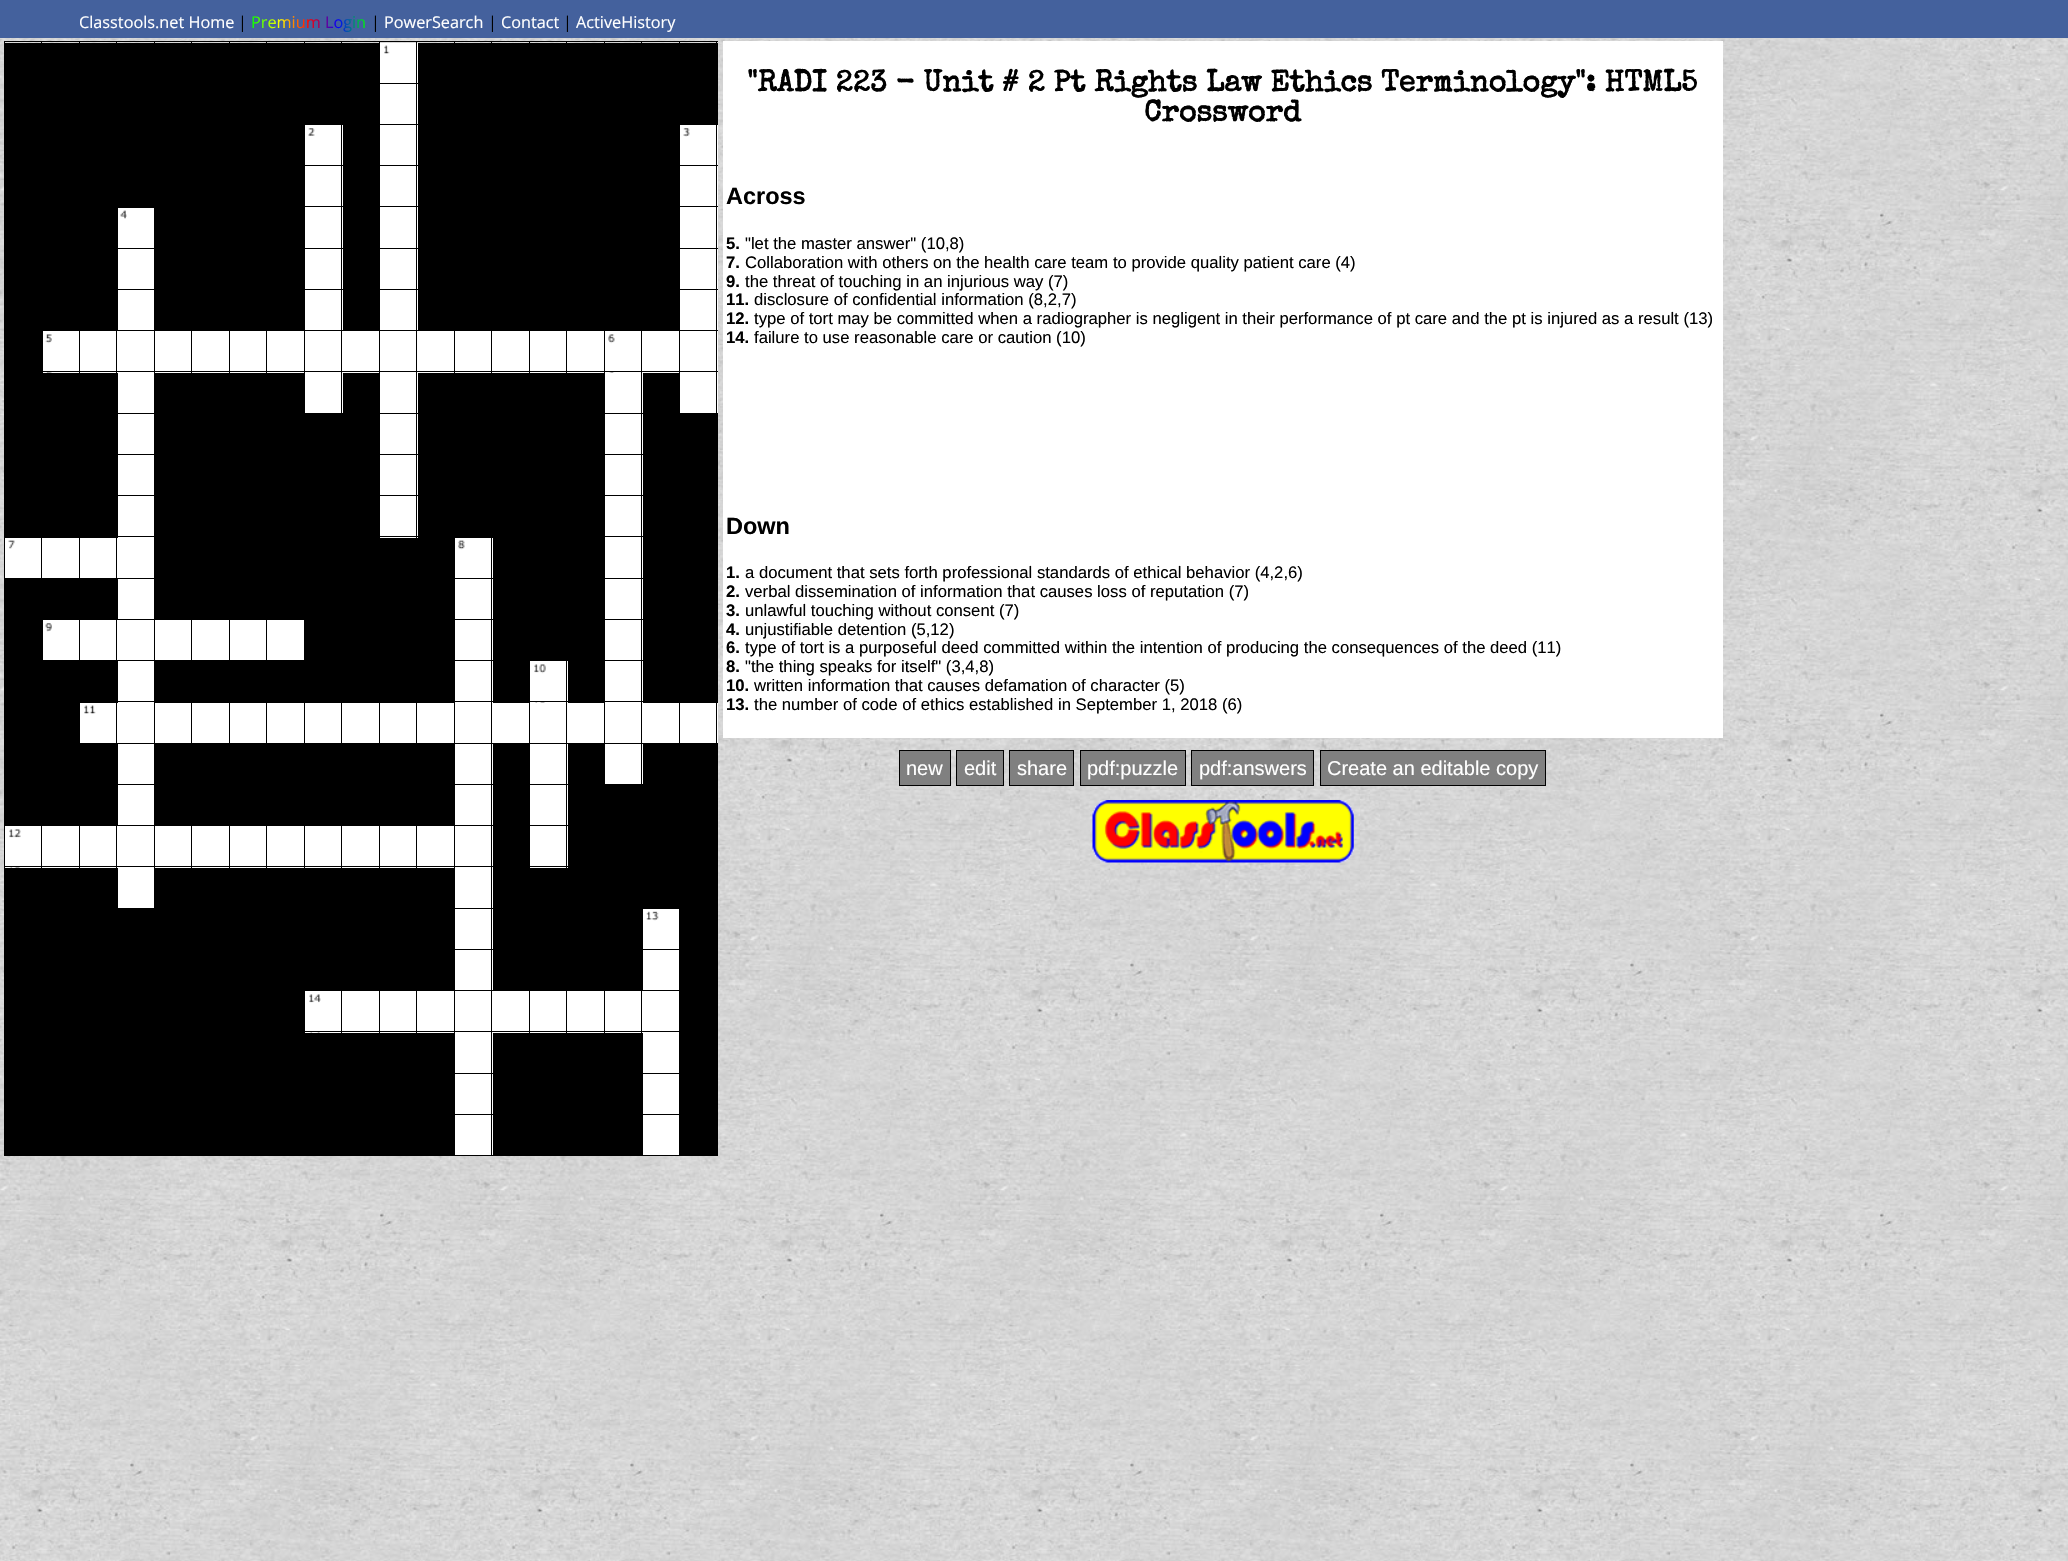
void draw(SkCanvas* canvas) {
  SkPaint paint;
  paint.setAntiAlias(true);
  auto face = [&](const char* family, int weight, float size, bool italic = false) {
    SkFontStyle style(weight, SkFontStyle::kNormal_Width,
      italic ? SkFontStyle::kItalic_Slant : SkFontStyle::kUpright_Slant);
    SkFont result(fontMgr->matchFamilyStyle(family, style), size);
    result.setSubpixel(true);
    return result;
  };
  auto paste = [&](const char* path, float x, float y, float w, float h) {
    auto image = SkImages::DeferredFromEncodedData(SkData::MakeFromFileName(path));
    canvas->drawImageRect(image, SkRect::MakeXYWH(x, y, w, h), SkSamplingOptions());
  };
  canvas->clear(0xffffffff);
  paste("img/1.png", 0, 38, 2068, 1523);
  {
    const struct { float x, y, w, h; SkColor color; } items[] = {
      {0, 0, 2068, 38, 0xff44619d},
      {5, 43, 38, 40, 0xff000000},
      {679, 41, 39, 1, 0xff000000},
      {679, 41, 1, 43, 0xff000000},
      {641, 41, 39, 1, 0xff000000},
      {641, 41, 1, 2, 0xff000000},
      {604, 41, 39, 1, 0xff000000},
      {604, 41, 1, 43, 0xff000000},
      {566, 41, 39, 1, 0xff000000},
      {566, 41, 1, 2, 0xff000000},
      {529, 41, 39, 1, 0xff000000},
      {529, 41, 1, 43, 0xff000000},
      {491, 41, 39, 1, 0xff000000},
      {491, 41, 1, 2, 0xff000000},
      {454, 41, 39, 1, 0xff000000},
      {416, 83, 39, 1, 0xff000000},
      {454, 41, 1, 43, 0xff000000},
      {416, 41, 39, 1, 0xff000000},
      {380, 43, 38, 40, 0xffffffff},
      {380, 84, 38, 40, 0xffffffff},
      {43, 84, 337, 41, 0xff000000},
      {416, 124, 39, 1, 0xff000000},
      {380, 125, 38, 40, 0xffffffff},
      {416, 165, 39, 1, 0xff000000},
      {380, 166, 38, 82, 0xffffffff},
      {343, 166, 37, 82, 0xff000000},
      {416, 206, 2, 1, 0xff000000},
      {416, 248, 39, 1, 0xff000000},
      {380, 249, 38, 40, 0xffffffff},
      {416, 289, 39, 1, 0xff000000},
      {380, 290, 38, 40, 0xffffffff},
      {380, 331, 74, 42, 0xffffffff},
      {455, 331, 74, 42, 0xffffffff},
      {530, 331, 74, 42, 0xffffffff},
      {605, 331, 74, 42, 0xffffffff},
    };
    for (auto [x, y, w, h, color] : items) {
      paint.setColor(color);
      canvas->drawRect(SkRect::MakeXYWH(x, y, w, h), paint);
    }
  }
  paste("img/6.png", 608, 334, 7, 39);
  {
    const struct { float x, y, w, h; SkColor color; } items[] = {
      {680, 331, 38, 82, 0xffffffff},
      {679, 371, 39, 1, 0xff000000},
      {641, 413, 77, 1, 0xff000000},
      {679, 371, 1, 43, 0xff000000},
      {641, 371, 39, 1, 0xff000000},
      {605, 373, 38, 40, 0xffffffff},
      {605, 414, 38, 40, 0xffffffff},
      {455, 414, 150, 41, 0xff000000},
      {641, 454, 39, 1, 0xff000000},
      {605, 455, 38, 40, 0xffffffff},
      {455, 455, 150, 41, 0xff000000},
      {641, 495, 39, 1, 0xff000000},
      {605, 496, 38, 82, 0xffffffff},
      {418, 496, 187, 42, 0xff000000},
      {641, 536, 2, 1, 0xff000000},
      {530, 538, 75, 41, 0xff000000},
      {641, 578, 39, 1, 0xff000000},
      {605, 579, 38, 40, 0xffffffff},
      {530, 579, 75, 41, 0xff000000},
      {641, 619, 39, 1, 0xff000000},
      {605, 620, 38, 40, 0xffffffff},
      {530, 620, 75, 41, 0xff000000},
      {641, 660, 39, 1, 0xff000000},
      {605, 661, 38, 82, 0xffffffff},
      {568, 661, 37, 42, 0xff000000},
      {641, 701, 2, 1, 0xff000000},
      {605, 744, 38, 40, 0xffffffff},
      {641, 743, 77, 1, 0xff000000},
      {566, 784, 114, 1, 0xff000000},
      {641, 743, 1, 42, 0xff000000},
      {566, 743, 77, 1, 0xff000000},
      {641, 701, 1, 43, 0xff000000},
      {604, 701, 39, 1, 0xff000000},
      {641, 660, 1, 43, 0xff000000},
      {604, 660, 39, 1, 0xff000000},
      {641, 619, 1, 42, 0xff000000},
      {604, 619, 39, 1, 0xff000000},
      {641, 578, 1, 42, 0xff000000},
      {604, 578, 39, 1, 0xff000000},
      {641, 536, 1, 43, 0xff000000},
      {604, 536, 39, 1, 0xff000000},
      {641, 495, 1, 43, 0xff000000},
      {604, 495, 39, 1, 0xff000000},
      {641, 454, 1, 42, 0xff000000},
      {604, 454, 39, 1, 0xff000000},
      {641, 413, 1, 42, 0xff000000},
      {604, 413, 39, 1, 0xff000000},
      {641, 371, 1, 43, 0xff000000},
      {604, 371, 39, 1, 0xff000000},
      {604, 371, 1, 43, 0xff000000},
      {566, 371, 39, 1, 0xff000000},
      {566, 371, 1, 2, 0xff000000},
      {529, 371, 39, 1, 0xff000000},
      {529, 371, 1, 43, 0xff000000},
      {491, 371, 39, 1, 0xff000000},
      {491, 371, 1, 2, 0xff000000},
      {454, 371, 39, 1, 0xff000000},
      {416, 413, 39, 1, 0xff000000},
      {454, 371, 1, 43, 0xff000000},
      {416, 371, 39, 1, 0xff000000},
      {454, 330, 1, 43, 0xff000000},
      {416, 330, 39, 1, 0xff000000},
      {380, 373, 38, 40, 0xffffffff},
      {380, 414, 38, 40, 0xffffffff},
      {193, 414, 187, 41, 0xff000000},
      {416, 454, 39, 1, 0xff000000},
      {380, 455, 38, 40, 0xffffffff},
      {193, 455, 187, 41, 0xff000000},
      {416, 495, 39, 1, 0xff000000},
      {380, 496, 38, 42, 0xffffffff},
      {155, 496, 225, 42, 0xff000000},
      {416, 536, 2, 1, 0xff000000},
      {416, 536, 1, 2, 0xff000000},
      {379, 536, 39, 1, 0xff000000},
      {416, 495, 1, 43, 0xff000000},
      {379, 495, 39, 1, 0xff000000},
      {416, 454, 1, 42, 0xff000000},
      {379, 454, 39, 1, 0xff000000},
      {416, 413, 1, 42, 0xff000000},
      {304, 413, 114, 1, 0xff000000},
      {416, 371, 1, 43, 0xff000000},
      {379, 371, 39, 1, 0xff000000},
      {416, 330, 1, 43, 0xff000000},
      {379, 330, 39, 1, 0xff000000},
      {416, 289, 1, 42, 0xff000000},
      {341, 289, 77, 1, 0xff000000},
      {416, 248, 1, 42, 0xff000000},
      {341, 248, 77, 1, 0xff000000},
      {416, 206, 1, 43, 0xff000000},
      {379, 206, 39, 1, 0xff000000},
      {416, 165, 1, 43, 0xff000000},
      {341, 165, 77, 1, 0xff000000},
      {416, 124, 1, 42, 0xff000000},
      {379, 124, 39, 1, 0xff000000},
      {416, 83, 1, 42, 0xff000000},
      {379, 83, 39, 1, 0xff000000},
      {416, 41, 1, 43, 0xff000000},
      {379, 41, 39, 1, 0xff000000},
      {379, 41, 1, 43, 0xff000000},
      {341, 41, 39, 1, 0xff000000},
      {341, 41, 1, 2, 0xff000000},
      {304, 41, 39, 1, 0xff000000},
      {304, 41, 1, 43, 0xff000000},
      {266, 41, 39, 1, 0xff000000},
      {266, 41, 1, 2, 0xff000000},
      {229, 41, 39, 1, 0xff000000},
      {229, 41, 1, 43, 0xff000000},
      {191, 41, 39, 1, 0xff000000},
      {191, 41, 1, 2, 0xff000000},
      {154, 41, 39, 1, 0xff000000},
      {154, 41, 1, 43, 0xff000000},
      {116, 41, 39, 1, 0xff000000},
      {116, 41, 1, 2, 0xff000000},
      {79, 41, 39, 1, 0xff000000},
      {79, 41, 1, 43, 0xff000000},
      {41, 41, 39, 1, 0xff000000},
      {41, 41, 1, 2, 0xff000000},
      {4, 41, 39, 1, 0xff000000},
      {4, 83, 39, 1, 0xff000000},
      {4, 124, 39, 1, 0xff000000},
      {4, 165, 39, 1, 0xff000000},
      {4, 248, 39, 1, 0xff000000},
      {4, 289, 39, 1, 0xff000000},
      {4, 330, 39, 1, 0xff000000},
      {4, 413, 39, 1, 0xff000000},
      {4, 454, 39, 1, 0xff000000},
      {4, 495, 39, 1, 0xff000000},
      {154, 578, 39, 1, 0xff000000},
      {43, 579, 75, 41, 0xff000000},
      {155, 620, 74, 40, 0xffffffff},
      {154, 660, 189, 1, 0xff000000},
      {191, 619, 1, 42, 0xff000000},
      {154, 619, 39, 1, 0xff000000},
      {5, 661, 113, 42, 0xff000000},
      {118, 661, 36, 42, 0xffffffff},
      {43, 703, 37, 123, 0xff000000},
      {455, 744, 38, 40, 0xffffffff},
      {530, 744, 38, 40, 0xffffffff},
      {530, 785, 38, 40, 0xffffffff},
      {566, 825, 39, 1, 0xff000000},
      {530, 826, 38, 42, 0xffffffff},
      {493, 826, 37, 82, 0xff000000},
      {566, 866, 2, 1, 0xff000000},
      {566, 866, 1, 2, 0xff000000},
      {529, 866, 39, 1, 0xff000000},
      {566, 825, 1, 43, 0xff000000},
      {491, 825, 77, 1, 0xff000000},
      {566, 784, 1, 42, 0xff000000},
      {491, 784, 77, 1, 0xff000000},
      {566, 743, 1, 42, 0xff000000},
      {491, 743, 77, 1, 0xff000000},
      {193, 744, 262, 41, 0xff000000},
      {455, 785, 38, 40, 0xffffffff},
      {193, 785, 262, 41, 0xff000000},
      {455, 826, 38, 82, 0xffffffff},
      {491, 866, 2, 1, 0xff000000},
      {491, 908, 39, 1, 0xff000000},
      {455, 909, 38, 40, 0xffffffff},
      {43, 909, 412, 41, 0xff000000},
      {491, 949, 39, 1, 0xff000000},
      {455, 950, 38, 40, 0xffffffff},
      {43, 950, 412, 41, 0xff000000},
      {455, 991, 74, 42, 0xffffffff},
      {530, 991, 74, 42, 0xffffffff},
      {605, 991, 74, 42, 0xffffffff},
      {605, 1033, 38, 41, 0xff000000},
      {679, 1073, 39, 1, 0xff000000},
      {530, 1074, 113, 41, 0xff000000},
      {679, 1114, 39, 1, 0xff000000},
      {679, 1155, 39, 1, 0xff000000},
      {679, 1114, 1, 42, 0xff000000},
      {641, 1114, 39, 1, 0xff000000},
      {679, 1073, 1, 42, 0xff000000},
      {641, 1073, 39, 1, 0xff000000},
      {679, 1031, 1, 43, 0xff000000},
      {641, 1031, 39, 1, 0xff000000},
      {641, 1031, 1, 2, 0xff000000},
      {604, 1031, 39, 1, 0xff000000},
      {604, 1031, 1, 43, 0xff000000},
      {566, 1031, 39, 1, 0xff000000},
      {566, 1031, 1, 2, 0xff000000},
      {529, 1031, 39, 1, 0xff000000},
      {491, 1073, 39, 1, 0xff000000},
      {529, 1031, 1, 43, 0xff000000},
      {491, 1031, 39, 1, 0xff000000},
      {529, 990, 1, 43, 0xff000000},
      {491, 990, 39, 1, 0xff000000},
      {455, 1033, 38, 40, 0xffffffff},
      {455, 1074, 38, 40, 0xffffffff},
      {43, 1074, 412, 41, 0xff000000},
      {491, 1114, 39, 1, 0xff000000},
      {455, 1115, 38, 40, 0xffffffff},
      {491, 1155, 39, 1, 0xff000000},
      {491, 1114, 1, 42, 0xff000000},
      {454, 1114, 39, 1, 0xff000000},
      {491, 1073, 1, 42, 0xff000000},
      {454, 1073, 39, 1, 0xff000000},
      {491, 1031, 1, 43, 0xff000000},
      {454, 1031, 39, 1, 0xff000000},
      {491, 990, 1, 43, 0xff000000},
      {454, 990, 39, 1, 0xff000000},
      {491, 949, 1, 42, 0xff000000},
      {454, 949, 39, 1, 0xff000000},
      {491, 908, 1, 42, 0xff000000},
      {454, 908, 39, 1, 0xff000000},
      {491, 866, 1, 43, 0xff000000},
      {454, 866, 39, 1, 0xff000000},
      {491, 825, 1, 43, 0xff000000},
      {454, 825, 39, 1, 0xff000000},
      {491, 784, 1, 42, 0xff000000},
      {454, 784, 39, 1, 0xff000000},
      {491, 743, 1, 42, 0xff000000},
      {154, 743, 339, 1, 0xff000000},
      {80, 744, 38, 82, 0xff000000},
      {154, 784, 39, 1, 0xff000000},
      {155, 826, 74, 42, 0xffffffff},
      {230, 826, 74, 42, 0xffffffff},
      {305, 826, 74, 42, 0xffffffff},
      {380, 826, 74, 42, 0xffffffff},
      {454, 866, 1, 43, 0xff000000},
      {416, 866, 39, 1, 0xff000000},
      {416, 866, 1, 2, 0xff000000},
      {379, 866, 39, 1, 0xff000000},
      {379, 866, 1, 43, 0xff000000},
      {341, 866, 39, 1, 0xff000000},
      {341, 866, 1, 2, 0xff000000},
      {304, 866, 39, 1, 0xff000000},
      {304, 866, 1, 43, 0xff000000},
      {266, 866, 39, 1, 0xff000000},
      {266, 866, 1, 2, 0xff000000},
      {229, 866, 39, 1, 0xff000000},
      {229, 866, 1, 43, 0xff000000},
      {191, 866, 39, 1, 0xff000000},
      {191, 866, 1, 2, 0xff000000},
      {154, 866, 39, 1, 0xff000000},
      {191, 825, 1, 43, 0xff000000},
      {154, 825, 39, 1, 0xff000000},
      {80, 826, 74, 42, 0xffffffff},
      {80, 868, 38, 41, 0xff000000},
      {116, 908, 77, 1, 0xff000000},
      {154, 866, 1, 43, 0xff000000},
      {116, 866, 39, 1, 0xff000000},
      {154, 825, 1, 43, 0xff000000},
      {116, 825, 39, 1, 0xff000000},
      {154, 784, 1, 42, 0xff000000},
      {116, 784, 39, 1, 0xff000000},
      {154, 743, 1, 42, 0xff000000},
      {79, 743, 76, 1, 0xff000000},
      {154, 701, 1, 43, 0xff000000},
      {116, 701, 39, 1, 0xff000000},
      {154, 660, 1, 43, 0xff000000},
      {4, 660, 151, 1, 0xff000000},
      {154, 619, 1, 42, 0xff000000},
      {116, 619, 39, 1, 0xff000000},
      {154, 578, 1, 42, 0xff000000},
      {4, 578, 151, 1, 0xff000000},
      {4, 619, 39, 1, 0xff000000},
      {4, 743, 39, 1, 0xff000000},
      {4, 784, 39, 1, 0xff000000},
      {5, 826, 74, 42, 0xffffffff},
    };
    for (auto [x, y, w, h, color] : items) {
      paint.setColor(color);
      canvas->drawRect(SkRect::MakeXYWH(x, y, w, h), paint);
    }
  }
  paste("img/13.png", 9, 829, 12, 39);
  {
    const struct { float x, y, w, h; SkColor color; } items[] = {
      {116, 866, 1, 2, 0xff000000},
      {79, 866, 39, 1, 0xff000000},
      {79, 866, 1, 43, 0xff000000},
      {41, 866, 39, 1, 0xff000000},
      {41, 866, 1, 2, 0xff000000},
      {4, 866, 39, 1, 0xff000000},
      {41, 825, 1, 43, 0xff000000},
      {4, 825, 39, 1, 0xff000000},
      {4, 908, 39, 1, 0xff000000},
      {4, 949, 39, 1, 0xff000000},
      {4, 990, 39, 1, 0xff000000},
      {4, 1073, 39, 1, 0xff000000},
      {4, 1114, 39, 1, 0xff000000},
      {4, 1155, 39, 1, 0xff000000},
      {4, 1114, 1, 42, 0xff000000},
      {4, 1073, 1, 42, 0xff000000},
      {4, 1031, 1, 43, 0xff000000},
      {4, 990, 1, 43, 0xff000000},
      {4, 949, 1, 42, 0xff000000},
      {4, 908, 1, 42, 0xff000000},
      {4, 866, 1, 43, 0xff000000},
      {4, 825, 1, 43, 0xff000000},
      {4, 784, 1, 42, 0xff000000},
      {4, 743, 1, 42, 0xff000000},
      {4, 701, 1, 43, 0xff000000},
      {4, 660, 1, 43, 0xff000000},
      {4, 619, 1, 42, 0xff000000},
      {4, 578, 1, 42, 0xff000000},
      {4, 536, 1, 43, 0xff000000},
      {4, 495, 1, 43, 0xff000000},
      {4, 454, 1, 42, 0xff000000},
      {4, 413, 1, 42, 0xff000000},
      {4, 371, 1, 43, 0xff000000},
      {4, 330, 1, 43, 0xff000000},
      {4, 289, 1, 42, 0xff000000},
      {4, 248, 1, 42, 0xff000000},
      {4, 206, 1, 43, 0xff000000},
      {4, 165, 1, 43, 0xff000000},
      {4, 124, 1, 42, 0xff000000},
      {4, 83, 1, 42, 0xff000000},
      {4, 41, 1, 43, 0xff000000},
      {43, 43, 36, 41, 0xff000000},
      {80, 43, 74, 41, 0xff000000},
      {155, 43, 74, 41, 0xff000000},
      {230, 43, 74, 41, 0xff000000},
      {305, 43, 74, 41, 0xff000000},
    };
    for (auto [x, y, w, h, color] : items) {
      paint.setColor(color);
      canvas->drawRect(SkRect::MakeXYWH(x, y, w, h), paint);
    }
  }
  paste("img/2.png", 384, 45, 6, 9);
  {
    const struct { float x, y, w, h; SkColor color; } items[] = {
      {418, 43, 36, 40, 0xff000000},
      {455, 43, 74, 41, 0xff000000},
      {530, 43, 74, 41, 0xff000000},
      {605, 43, 74, 41, 0xff000000},
      {680, 43, 38, 41, 0xff000000},
      {716, 41, 1, 2, 0xff000000},
      {5, 84, 38, 40, 0xff000000},
      {418, 84, 37, 40, 0xff000000},
      {455, 84, 263, 41, 0xff000000},
      {5, 125, 38, 40, 0xff000000},
      {43, 125, 262, 41, 0xff000000},
      {305, 125, 38, 40, 0xffffffff},
    };
    for (auto [x, y, w, h, color] : items) {
      paint.setColor(color);
      canvas->drawRect(SkRect::MakeXYWH(x, y, w, h), paint);
    }
  }
  paste("img/3.png", 308, 128, 7, 8);
  {
    const struct { float x, y, w, h; SkColor color; } items[] = {
      {343, 125, 37, 40, 0xff000000},
      {305, 166, 38, 82, 0xffffffff},
      {5, 166, 300, 42, 0xff000000},
      {341, 206, 2, 1, 0xff000000},
      {193, 208, 112, 41, 0xff000000},
      {305, 249, 38, 40, 0xffffffff},
      {193, 249, 112, 41, 0xff000000},
      {305, 290, 38, 40, 0xffffffff},
      {193, 290, 112, 41, 0xff000000},
      {305, 331, 74, 42, 0xffffffff},
      {379, 371, 1, 43, 0xff000000},
      {341, 371, 39, 1, 0xff000000},
      {379, 330, 1, 43, 0xff000000},
      {341, 330, 39, 1, 0xff000000},
      {305, 373, 38, 40, 0xffffffff},
      {341, 371, 1, 43, 0xff000000},
      {304, 371, 39, 1, 0xff000000},
      {341, 330, 1, 43, 0xff000000},
      {304, 330, 39, 1, 0xff000000},
      {341, 289, 1, 42, 0xff000000},
      {304, 289, 39, 1, 0xff000000},
      {341, 248, 1, 42, 0xff000000},
      {304, 248, 39, 1, 0xff000000},
      {341, 206, 1, 43, 0xff000000},
      {304, 206, 39, 1, 0xff000000},
      {341, 165, 1, 43, 0xff000000},
      {304, 165, 39, 1, 0xff000000},
      {341, 124, 1, 42, 0xff000000},
      {418, 125, 37, 40, 0xff000000},
      {455, 125, 225, 41, 0xff000000},
      {680, 125, 38, 40, 0xffffffff},
    };
    for (auto [x, y, w, h, color] : items) {
      paint.setColor(color);
      canvas->drawRect(SkRect::MakeXYWH(x, y, w, h), paint);
    }
  }
  paste("img/4.png", 683, 128, 7, 9);
  {
    const struct { float x, y, w, h; SkColor color; } items[] = {
      {680, 166, 38, 82, 0xffffffff},
      {679, 165, 39, 1, 0xff000000},
      {418, 166, 262, 42, 0xff000000},
      {679, 206, 39, 1, 0xff000000},
      {455, 208, 225, 41, 0xff000000},
      {679, 248, 39, 1, 0xff000000},
      {680, 249, 38, 40, 0xffffffff},
      {455, 249, 225, 41, 0xff000000},
      {679, 289, 39, 1, 0xff000000},
      {680, 290, 38, 40, 0xffffffff},
      {455, 290, 225, 41, 0xff000000},
      {679, 330, 39, 1, 0xff000000},
      {716, 371, 1, 43, 0xff000000},
      {716, 330, 1, 43, 0xff000000},
      {716, 289, 1, 42, 0xff000000},
      {716, 248, 1, 42, 0xff000000},
      {716, 206, 1, 43, 0xff000000},
      {716, 124, 1, 84, 0xff000000},
      {5, 208, 38, 40, 0xff000000},
      {155, 208, 38, 40, 0xff000000},
      {43, 208, 75, 41, 0xff000000},
      {154, 248, 39, 1, 0xff000000},
      {43, 249, 75, 41, 0xff000000},
      {154, 289, 39, 1, 0xff000000},
      {43, 290, 75, 41, 0xff000000},
      {155, 331, 74, 42, 0xffffffff},
      {230, 331, 74, 42, 0xffffffff},
      {304, 371, 1, 43, 0xff000000},
      {266, 371, 39, 1, 0xff000000},
      {266, 371, 1, 2, 0xff000000},
      {229, 371, 39, 1, 0xff000000},
      {229, 371, 1, 43, 0xff000000},
      {191, 371, 39, 1, 0xff000000},
      {191, 371, 1, 2, 0xff000000},
      {154, 371, 39, 1, 0xff000000},
      {191, 330, 1, 43, 0xff000000},
      {154, 330, 39, 1, 0xff000000},
      {80, 331, 74, 42, 0xffffffff},
      {80, 373, 38, 41, 0xff000000},
      {154, 413, 39, 1, 0xff000000},
      {43, 414, 75, 41, 0xff000000},
      {154, 454, 39, 1, 0xff000000},
      {43, 455, 75, 41, 0xff000000},
      {154, 495, 39, 1, 0xff000000},
      {5, 496, 113, 42, 0xff000000},
      {118, 496, 36, 42, 0xffffffff},
      {154, 536, 1, 43, 0xff000000},
      {116, 536, 39, 1, 0xff000000},
      {154, 495, 1, 43, 0xff000000},
      {116, 495, 39, 1, 0xff000000},
      {154, 454, 1, 42, 0xff000000},
      {116, 454, 39, 1, 0xff000000},
      {154, 413, 1, 42, 0xff000000},
      {116, 413, 39, 1, 0xff000000},
      {154, 371, 1, 43, 0xff000000},
      {116, 371, 39, 1, 0xff000000},
      {154, 330, 1, 43, 0xff000000},
      {116, 330, 39, 1, 0xff000000},
      {154, 289, 1, 42, 0xff000000},
      {116, 289, 39, 1, 0xff000000},
      {154, 248, 1, 42, 0xff000000},
      {116, 248, 39, 1, 0xff000000},
      {154, 206, 1, 43, 0xff000000},
      {118, 208, 36, 40, 0xffffffff},
    };
    for (auto [x, y, w, h, color] : items) {
      paint.setColor(color);
      canvas->drawRect(SkRect::MakeXYWH(x, y, w, h), paint);
    }
  }
  paste("img/5.png", 120, 210, 7, 9);
  {
    const struct { float x, y, w, h; SkColor color; } items[] = {
      {418, 208, 37, 40, 0xff000000},
      {5, 249, 38, 40, 0xff000000},
      {118, 249, 36, 40, 0xffffffff},
      {155, 249, 38, 40, 0xff000000},
      {343, 249, 37, 40, 0xff000000},
      {418, 249, 37, 40, 0xff000000},
      {5, 290, 38, 40, 0xff000000},
      {118, 290, 36, 40, 0xffffffff},
      {155, 290, 38, 40, 0xff000000},
      {343, 290, 37, 40, 0xff000000},
      {418, 290, 37, 40, 0xff000000},
      {5, 331, 38, 82, 0xff000000},
      {43, 331, 36, 42, 0xffffffff},
    };
    for (auto [x, y, w, h, color] : items) {
      paint.setColor(color);
      canvas->drawRect(SkRect::MakeXYWH(x, y, w, h), paint);
    }
  }
  paste("img/7.png", 45, 334, 7, 39);
  {
    const struct { float x, y, w, h; SkColor color; } items[] = {
      {116, 371, 1, 2, 0xff000000},
      {79, 371, 39, 1, 0xff000000},
      {79, 371, 1, 43, 0xff000000},
      {41, 371, 39, 1, 0xff000000},
      {79, 330, 1, 43, 0xff000000},
      {116, 330, 1, 43, 0xff000000},
      {229, 330, 1, 43, 0xff000000},
      {266, 330, 1, 43, 0xff000000},
      {304, 330, 1, 43, 0xff000000},
      {491, 330, 1, 43, 0xff000000},
      {529, 330, 1, 43, 0xff000000},
      {566, 330, 1, 43, 0xff000000},
      {604, 330, 1, 43, 0xff000000},
      {641, 330, 1, 43, 0xff000000},
      {679, 330, 1, 43, 0xff000000},
      {43, 373, 36, 41, 0xff000000},
      {118, 373, 36, 40, 0xffffffff},
      {155, 373, 38, 40, 0xff000000},
      {193, 373, 36, 41, 0xff000000},
      {230, 373, 74, 41, 0xff000000},
      {343, 373, 36, 40, 0xff000000},
      {418, 373, 36, 40, 0xff000000},
      {455, 373, 74, 41, 0xff000000},
      {530, 373, 74, 41, 0xff000000},
      {643, 373, 36, 40, 0xff000000},
      {5, 414, 38, 40, 0xff000000},
      {118, 414, 36, 40, 0xffffffff},
      {155, 414, 38, 40, 0xff000000},
      {418, 414, 37, 40, 0xff000000},
      {643, 414, 37, 40, 0xff000000},
      {680, 414, 38, 82, 0xff000000},
      {5, 455, 38, 40, 0xff000000},
      {118, 455, 36, 40, 0xffffffff},
      {155, 455, 38, 40, 0xff000000},
      {418, 455, 37, 40, 0xff000000},
      {643, 455, 37, 40, 0xff000000},
      {643, 496, 75, 42, 0xff000000},
      {5, 538, 74, 40, 0xffffffff},
    };
    for (auto [x, y, w, h, color] : items) {
      paint.setColor(color);
      canvas->drawRect(SkRect::MakeXYWH(x, y, w, h), paint);
    }
  }
  paste("img/8.png", 8, 540, 7, 9);
  {
    const struct { float x, y, w, h; SkColor color; } items[] = {
      {41, 536, 1, 43, 0xff000000},
      {80, 538, 74, 40, 0xffffffff},
      {79, 536, 1, 43, 0xff000000},
      {116, 536, 1, 43, 0xff000000},
      {155, 538, 38, 40, 0xff000000},
      {493, 538, 37, 40, 0xff000000},
      {455, 538, 38, 40, 0xffffffff},
      {193, 538, 262, 41, 0xff000000},
      {491, 578, 39, 1, 0xff000000},
      {455, 579, 38, 40, 0xffffffff},
      {193, 579, 262, 41, 0xff000000},
      {491, 619, 39, 1, 0xff000000},
      {455, 620, 38, 40, 0xffffffff},
      {343, 620, 112, 41, 0xff000000},
      {491, 660, 39, 1, 0xff000000},
      {455, 661, 38, 82, 0xffffffff},
      {155, 661, 300, 42, 0xff000000},
      {491, 701, 2, 1, 0xff000000},
      {491, 701, 1, 43, 0xff000000},
      {454, 701, 39, 1, 0xff000000},
      {491, 660, 1, 43, 0xff000000},
      {454, 660, 39, 1, 0xff000000},
      {491, 619, 1, 42, 0xff000000},
      {454, 619, 39, 1, 0xff000000},
      {491, 578, 1, 42, 0xff000000},
      {454, 578, 39, 1, 0xff000000},
      {491, 536, 1, 43, 0xff000000},
      {643, 538, 37, 40, 0xff000000},
    };
    for (auto [x, y, w, h, color] : items) {
      paint.setColor(color);
      canvas->drawRect(SkRect::MakeXYWH(x, y, w, h), paint);
    }
  }
  paste("img/9.png", 458, 540, 7, 10);
  {
    const struct { float x, y, w, h; SkColor color; } items[] = {
      {680, 538, 38, 123, 0xff000000},
      {5, 579, 38, 40, 0xff000000},
      {118, 579, 36, 40, 0xffffffff},
      {155, 579, 38, 40, 0xff000000},
      {493, 579, 37, 40, 0xff000000},
      {643, 579, 37, 40, 0xff000000},
      {5, 620, 38, 40, 0xff000000},
      {80, 620, 74, 40, 0xffffffff},
      {79, 619, 1, 42, 0xff000000},
      {116, 619, 1, 42, 0xff000000},
      {230, 620, 74, 40, 0xffffffff},
      {229, 619, 1, 42, 0xff000000},
      {43, 620, 36, 40, 0xffffffff},
    };
    for (auto [x, y, w, h, color] : items) {
      paint.setColor(color);
      canvas->drawRect(SkRect::MakeXYWH(x, y, w, h), paint);
    }
  }
  paste("img/10.png", 45, 623, 7, 9);
  {
    const struct { float x, y, w, h; SkColor color; } items[] = {
      {266, 619, 1, 42, 0xff000000},
      {305, 620, 38, 40, 0xff000000},
      {304, 619, 1, 42, 0xff000000},
      {493, 620, 37, 40, 0xff000000},
      {643, 620, 37, 40, 0xff000000},
      {493, 661, 37, 42, 0xff000000},
      {530, 661, 38, 82, 0xffffffff},
    };
    for (auto [x, y, w, h, color] : items) {
      paint.setColor(color);
      canvas->drawRect(SkRect::MakeXYWH(x, y, w, h), paint);
    }
  }
  paste("img/11.png", 534, 664, 12, 39);
  {
    const struct { float x, y, w, h; SkColor color; } items[] = {
      {566, 701, 2, 1, 0xff000000},
      {566, 701, 1, 43, 0xff000000},
      {529, 701, 39, 1, 0xff000000},
      {566, 660, 1, 43, 0xff000000},
      {643, 661, 75, 42, 0xff000000},
      {5, 703, 38, 40, 0xff000000},
      {80, 703, 74, 40, 0xffffffff},
      {116, 701, 1, 43, 0xff000000},
      {155, 703, 74, 40, 0xffffffff},
      {191, 701, 1, 43, 0xff000000},
      {230, 703, 74, 40, 0xffffffff},
      {229, 701, 1, 43, 0xff000000},
      {266, 701, 1, 43, 0xff000000},
      {305, 703, 74, 40, 0xffffffff},
      {304, 701, 1, 43, 0xff000000},
      {341, 701, 1, 43, 0xff000000},
      {380, 703, 74, 40, 0xffffffff},
      {379, 701, 1, 43, 0xff000000},
    };
    for (auto [x, y, w, h, color] : items) {
      paint.setColor(color);
      canvas->drawRect(SkRect::MakeXYWH(x, y, w, h), paint);
    }
  }
  paste("img/12.png", 84, 705, 12, 9);
  {
    const struct { float x, y, w, h; SkColor color; } items[] = {
      {416, 701, 1, 43, 0xff000000},
      {454, 701, 1, 43, 0xff000000},
      {493, 703, 36, 40, 0xffffffff},
      {529, 701, 1, 43, 0xff000000},
      {568, 703, 36, 40, 0xffffffff},
      {604, 701, 1, 43, 0xff000000},
      {643, 703, 36, 40, 0xffffffff},
      {680, 703, 38, 40, 0xffffffff},
      {716, 701, 1, 43, 0xff000000},
      {679, 701, 1, 43, 0xff000000},
      {5, 744, 38, 40, 0xff000000},
      {118, 744, 36, 40, 0xffffffff},
      {155, 744, 38, 40, 0xff000000},
      {493, 744, 37, 40, 0xff000000},
      {568, 744, 37, 40, 0xff000000},
      {643, 744, 37, 40, 0xff000000},
      {680, 744, 38, 41, 0xff000000},
      {5, 785, 38, 40, 0xff000000},
      {118, 785, 36, 40, 0xffffffff},
      {155, 785, 38, 40, 0xff000000},
      {493, 785, 37, 40, 0xff000000},
      {568, 785, 37, 40, 0xff000000},
      {605, 785, 113, 41, 0xff000000},
      {79, 825, 1, 43, 0xff000000},
      {116, 825, 1, 43, 0xff000000},
      {229, 825, 1, 43, 0xff000000},
      {266, 825, 1, 43, 0xff000000},
      {304, 825, 1, 43, 0xff000000},
      {341, 825, 1, 43, 0xff000000},
      {379, 825, 1, 43, 0xff000000},
      {416, 825, 1, 43, 0xff000000},
      {454, 825, 1, 43, 0xff000000},
      {568, 826, 150, 42, 0xff000000},
      {5, 868, 38, 40, 0xff000000},
      {43, 868, 36, 41, 0xff000000},
      {118, 868, 36, 40, 0xffffffff},
      {155, 868, 38, 40, 0xff000000},
      {193, 868, 36, 41, 0xff000000},
      {230, 868, 74, 41, 0xff000000},
      {305, 868, 74, 41, 0xff000000},
      {380, 868, 74, 41, 0xff000000},
      {530, 868, 188, 41, 0xff000000},
      {5, 909, 38, 40, 0xff000000},
      {493, 909, 37, 40, 0xff000000},
      {680, 909, 38, 40, 0xff000000},
      {530, 909, 113, 41, 0xff000000},
      {679, 949, 39, 1, 0xff000000},
      {530, 950, 113, 41, 0xff000000},
      {679, 990, 39, 1, 0xff000000},
      {679, 990, 1, 43, 0xff000000},
      {641, 990, 39, 1, 0xff000000},
      {679, 949, 1, 42, 0xff000000},
      {641, 949, 39, 1, 0xff000000},
      {679, 908, 1, 42, 0xff000000},
      {643, 909, 36, 40, 0xffffffff},
    };
    for (auto [x, y, w, h, color] : items) {
      paint.setColor(color);
      canvas->drawRect(SkRect::MakeXYWH(x, y, w, h), paint);
    }
  }
  paste("img/14.png", 646, 911, 13, 10);
  {
    const struct { float x, y, w, h; SkColor color; } items[] = {
      {5, 950, 38, 40, 0xff000000},
      {493, 950, 37, 40, 0xff000000},
      {643, 950, 36, 40, 0xffffffff},
      {680, 950, 38, 40, 0xff000000},
      {5, 991, 300, 42, 0xff000000},
      {305, 991, 74, 42, 0xffffffff},
    };
    for (auto [x, y, w, h, color] : items) {
      paint.setColor(color);
      canvas->drawRect(SkRect::MakeXYWH(x, y, w, h), paint);
    }
  }
  paste("img/15.png", 309, 994, 12, 39);
  {
    const struct { float x, y, w, h; SkColor color; } items[] = {
      {380, 991, 74, 42, 0xffffffff},
      {454, 1031, 1, 43, 0xff000000},
      {416, 1031, 39, 1, 0xff000000},
      {416, 1031, 1, 2, 0xff000000},
      {379, 1031, 39, 1, 0xff000000},
      {379, 1031, 1, 43, 0xff000000},
      {341, 1031, 39, 1, 0xff000000},
      {341, 1031, 1, 2, 0xff000000},
      {304, 1031, 39, 1, 0xff000000},
      {341, 990, 1, 43, 0xff000000},
      {379, 990, 1, 43, 0xff000000},
      {416, 990, 1, 43, 0xff000000},
      {454, 990, 1, 43, 0xff000000},
      {566, 990, 1, 43, 0xff000000},
      {604, 990, 1, 43, 0xff000000},
      {641, 990, 1, 43, 0xff000000},
      {680, 991, 38, 82, 0xff000000},
      {5, 1033, 38, 40, 0xff000000},
      {380, 1033, 74, 41, 0xff000000},
      {493, 1033, 36, 40, 0xff000000},
      {530, 1033, 74, 41, 0xff000000},
      {643, 1033, 36, 40, 0xffffffff},
      {43, 1033, 336, 41, 0xff000000},
      {5, 1074, 38, 40, 0xff000000},
      {493, 1074, 37, 40, 0xff000000},
      {643, 1074, 36, 40, 0xffffffff},
      {680, 1074, 38, 40, 0xff000000},
      {5, 1115, 38, 40, 0xff000000},
      {43, 1115, 412, 41, 0xff000000},
      {454, 1155, 39, 1, 0xff000000},
      {493, 1115, 37, 40, 0xff000000},
      {530, 1115, 113, 41, 0xff000000},
      {643, 1115, 36, 40, 0xffffffff},
      {641, 1155, 39, 1, 0xff000000},
      {680, 1115, 38, 40, 0xff000000},
      {723, 41, 1000, 697, 0xffffffff},
    };
    for (auto [x, y, w, h, color] : items) {
      paint.setColor(color);
      canvas->drawRect(SkRect::MakeXYWH(x, y, w, h), paint);
    }
  }
  paint.setColor(0xff808080);
  canvas->drawRect(SkRect::MakeXYWH(899.5f, 750.5f, 51, 35), paint);
  paint.setStroke(true);
  paint.setStrokeWidth(1);
  paint.setColor(0xff000000);
  canvas->drawRect(SkRect::MakeXYWH(899.5f, 750.5f, 51, 35), paint);
  paint.setStroke(false);
  paint.setColor(0xff808080);
  canvas->drawRect(SkRect::MakeXYWH(956.5f, 750.5f, 47, 35), paint);
  paint.setStroke(true);
  paint.setColor(0xff000000);
  canvas->drawRect(SkRect::MakeXYWH(956.5f, 750.5f, 47, 35), paint);
  paint.setStroke(false);
  paint.setColor(0xff808080);
  canvas->drawRect(SkRect::MakeXYWH(1009.5f, 750.5f, 64, 35), paint);
  paint.setStroke(true);
  paint.setColor(0xff000000);
  canvas->drawRect(SkRect::MakeXYWH(1009.5f, 750.5f, 64, 35), paint);
  paint.setStroke(false);
  paint.setColor(0xff808080);
  canvas->drawRect(SkRect::MakeXYWH(1080.5f, 750.5f, 105, 35), paint);
  paint.setStroke(true);
  paint.setColor(0xff000000);
  canvas->drawRect(SkRect::MakeXYWH(1080.5f, 750.5f, 105, 35), paint);
  paint.setStroke(false);
  paint.setColor(0xff808080);
  canvas->drawRect(SkRect::MakeXYWH(1191.5f, 750.5f, 122, 35), paint);
  paint.setStroke(true);
  paint.setColor(0xff000000);
  canvas->drawRect(SkRect::MakeXYWH(1191.5f, 750.5f, 122, 35), paint);
  paint.setStroke(false);
  paint.setColor(0xff808080);
  canvas->drawRect(SkRect::MakeXYWH(1320.5f, 750.5f, 225, 35), paint);
  paint.setStroke(true);
  paint.setColor(0xff000000);
  canvas->drawRect(SkRect::MakeXYWH(1320.5f, 750.5f, 225, 35), paint);
  paste("img/16.png", 1092, 800, 262, 63);
  auto f0 = face("Open Sans", 400, 16.25f);
  paint.setStroke(false);
  paint.setColor(0xffffffff);
  canvas->drawString("Classtools.net Home", 79, 28, f0, paint);
  paint.setColor(0xff000000);
  canvas->drawString("|", 238, 28, f0, paint);
  {
    const SkColor colors[] = {0xff00ff00, 0xffffff00, 0xffff0000, 0xff0000ff, 0xff00ff00};
    const float stops[] = {0, 0.25f, 0.5f, 0.75f, 1};
    const SkPoint ends[] = {{251, 21}, {367, 21}};
    paint.setShader(SkGradientShader::MakeLinear(ends, colors, stops, 5, SkTileMode::kClamp));
    paint.setAlpha(255);
  }
  canvas->drawString("Premium Login", 251, 28, f0, paint);
  paint.setShader(nullptr);
  paint.setColor(0xff000000);
  canvas->drawString("|", 371, 28, f0, paint);
  paint.setColor(0xffffffff);
  canvas->drawString("PowerSearch", 384, 28, f0, paint);
  paint.setColor(0xff000000);
  canvas->drawString("|", 488, 28, f0, paint);
  paint.setColor(0xffffffff);
  canvas->drawString("Contact", 501, 28, f0, paint);
  paint.setColor(0xff000000);
  canvas->drawString("|", 563, 28, f0, paint);
  paint.setColor(0xffffffff);
  canvas->drawString("ActiveHistory", 576, 28, f0, paint);
  auto f1 = face("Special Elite", 700, 30);
  paint.setColor(0xff000000);
  canvas->drawString("\"RADI 223 - Unit # 2 Pt Rights Law Ethics Terminology\": HTML5", 747, 91, f1, paint);
  canvas->drawString("Crossword", 1144, 121, f1, paint);
  auto f2 = face("Liberation Sans", 700, 23.5f);
  canvas->drawString("Across", 726, 204, f2, paint);
  auto f3 = face("Liberation Sans", 700, 16.67f);
  canvas->drawString("5.", 726, 249, f3, paint);
  auto f4 = face("Liberation Sans", 400, 16.67f);
  canvas->drawString("\"let the master answer\" (10,8)", 745, 249, f4, paint);
  canvas->drawString("7.", 726, 268, f3, paint);
  canvas->drawString("Collaboration with others on the health care team to provide quality patient care (4)", 745, 268, f4, paint);
  canvas->drawString("9.", 726, 287, f3, paint);
  canvas->drawString("the threat of touching in an injurious way (7)", 745, 287, f4, paint);
  canvas->drawString("11.", 726, 305, f3, paint);
  canvas->drawString("disclosure of confidential information (8,2,7)", 754, 305, f4, paint);
  canvas->drawString("12.", 726, 324, f3, paint);
  canvas->drawString("type of tort may be committed when a radiographer is negligent in their performance of pt care and the pt is injured as a result (13)", 754, 324, f4, paint);
  canvas->drawString("14.", 726, 343, f3, paint);
  canvas->drawString("failure to use reasonable care or caution (10)", 754, 343, f4, paint);
  canvas->drawString("Down", 726, 534, f2, paint);
  canvas->drawString("1.", 726, 578, f3, paint);
  canvas->drawString("a document that sets forth professional standards of ethical behavior (4,2,6)", 745, 578, f4, paint);
  canvas->drawString("2.", 726, 597, f3, paint);
  canvas->drawString("verbal dissemination of information that causes loss of reputation (7)", 745, 597, f4, paint);
  canvas->drawString("3.", 726, 616, f3, paint);
  canvas->drawString("unlawful touching without consent (7)", 745, 616, f4, paint);
  canvas->drawString("4.", 726, 635, f3, paint);
  canvas->drawString("unjustifiable detention (5,12)", 745, 635, f4, paint);
  canvas->drawString("6.", 726, 653, f3, paint);
  canvas->drawString("type of tort is a purposeful deed committed within the intention of producing the consequences of the deed (11)", 745, 653, f4, paint);
  canvas->drawString("8.", 726, 672, f3, paint);
  canvas->drawString("\"the thing speaks for itself\" (3,4,8)", 745, 672, f4, paint);
  canvas->drawString("10.", 726, 691, f3, paint);
  canvas->drawString("written information that causes defamation of character (5)", 754, 691, f4, paint);
  canvas->drawString("13.", 726, 710, f3, paint);
  canvas->drawString("the number of code of ethics established in September 1, 2018 (6)", 754, 710, f4, paint);
  auto f5 = face("Liberation Sans", 400, 20);
  paint.setColor(0xffffffff);
  {
    const struct { const char* s; float x, y; } items[] = {
      {"new", 906, 775},
      {"edit", 964, 775},
      {"share", 1017, 775},
      {"pdf:puzzle", 1087, 775},
      {"pdf:answers", 1199, 775},
      {"Create an editable copy", 1327, 775},
    };
    for (auto [s, x, y] : items) {
      canvas->drawString(s, x, y, f5, paint);
    }
  }
}
